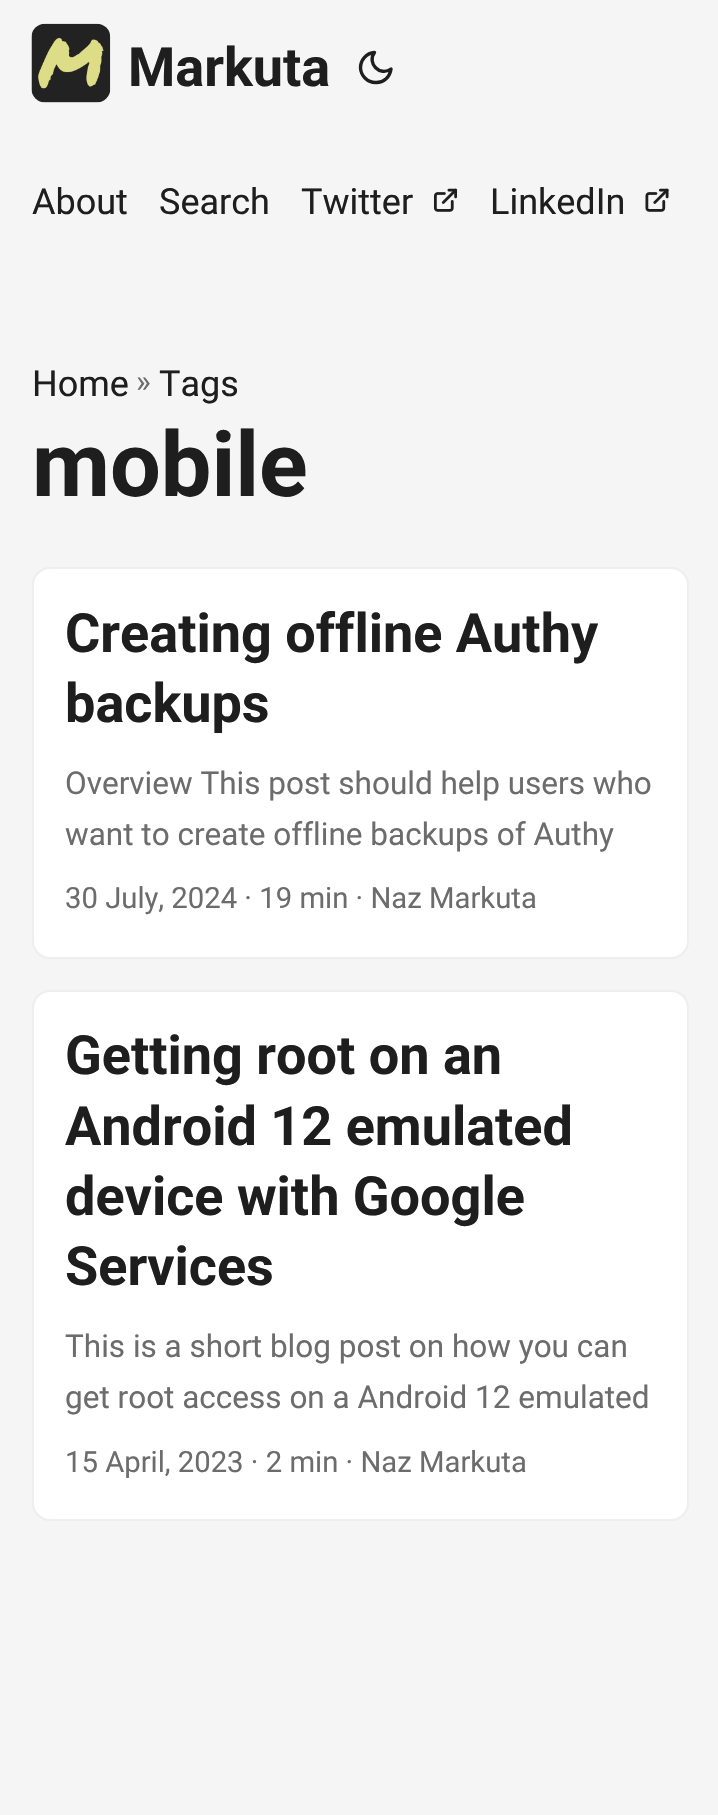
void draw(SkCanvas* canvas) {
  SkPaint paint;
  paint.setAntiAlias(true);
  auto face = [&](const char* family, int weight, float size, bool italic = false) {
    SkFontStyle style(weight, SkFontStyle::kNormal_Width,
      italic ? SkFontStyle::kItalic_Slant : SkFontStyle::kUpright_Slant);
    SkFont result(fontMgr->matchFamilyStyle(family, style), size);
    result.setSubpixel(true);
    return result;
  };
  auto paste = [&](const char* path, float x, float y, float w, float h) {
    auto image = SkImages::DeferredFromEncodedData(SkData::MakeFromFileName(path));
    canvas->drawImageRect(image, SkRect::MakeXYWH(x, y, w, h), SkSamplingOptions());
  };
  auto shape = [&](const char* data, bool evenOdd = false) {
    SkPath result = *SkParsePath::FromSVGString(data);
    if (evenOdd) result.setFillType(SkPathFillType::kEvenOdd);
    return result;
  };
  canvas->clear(0xfff5f5f5);
  paste("img/1.png", 31, 23, 80, 80);
  paint.setStroke(true);
  paint.setStrokeWidth(3.4f);
  paint.setStrokeCap(SkPaint::kRound_Cap);
  paint.setStrokeJoin(SkPaint::kRound_Join);
  paint.setColor(0xff1e1e1e);
  canvas->drawPath(shape("M391 69C390 77 383.5 83 375.5 82.5C367.5 82.5 361 76 360.5 68C360.5 60 366.5 53 374.5 52.5C366.5 63 380 77 391 69Z"), paint);
  paste("img/2.png", 433, 188, 25, 24);
  paste("img/3.png", 645, 188, 24, 24);
  paint.setStroke(false);
  paint.setColor(0xffffffff);
  canvas->drawRoundRect(SkRect::MakeXYWH(33, 568, 655, 390), 17, 17, paint);
  paint.setStroke(true);
  paint.setStrokeWidth(2);
  paint.setStrokeCap(SkPaint::kButt_Cap);
  paint.setStrokeJoin(SkPaint::kMiter_Join);
  paint.setColor(0xffeeeeee);
  canvas->drawRoundRect(SkRect::MakeXYWH(33, 568, 655, 390), 17, 17, paint);
  paint.setStroke(false);
  paint.setColor(0xffffffff);
  canvas->drawRoundRect(SkRect::MakeXYWH(33, 991, 655, 529), 17, 17, paint);
  paint.setStroke(true);
  paint.setColor(0xffeeeeee);
  canvas->drawRoundRect(SkRect::MakeXYWH(33, 991, 655, 529), 17, 17, paint);
  auto f0 = face("Roboto", 700, 54);
  paint.setStroke(false);
  paint.setColor(0xff1e1e1e);
  canvas->drawString("Markuta", 128, 86, f0, paint);
  auto f1 = face("Roboto", 400, 36);
  {
    const struct { const char* s; float x, y; } items[] = {
      {"About", 32, 214},
      {"Search", 159, 214},
      {"Twitter", 301, 214},
      {"LinkedIn", 490, 214},
      {"Home", 32, 396},
    };
    for (auto [s, x, y] : items) {
      canvas->drawString(s, x, y, f1, paint);
    }
  }
  auto f2 = face("Roboto", 400, 31.5f);
  paint.setColor(0xff6c6c6c);
  canvas->drawString("»", 136, 392, f2, paint);
  paint.setColor(0xff1e1e1e);
  canvas->drawString("Tags", 159, 396, f1, paint);
  auto f3 = face("Roboto", 700, 90);
  canvas->drawString("mobile", 32, 496, f3, paint);
  canvas->drawString("Creating offline Authy", 65, 652, f0, paint);
  canvas->drawString("backups", 65, 722, f0, paint);
  paint.setColor(0xff6c6c6c);
  canvas->drawString("Overview This post should help users who", 65, 794, f2, paint);
  canvas->drawString("want to create offline backups of Authy", 65, 845, f2, paint);
  auto f4 = face("Roboto", 400, 29.25f);
  canvas->drawString("30 July, 2024 · 19 min · Naz Markuta", 65, 908, f4, paint);
  paint.setColor(0xff1e1e1e);
  {
    const struct { const char* s; float x, y; } items[] = {
      {"Getting root on an", 65, 1074},
      {"Android 12 emulated", 65, 1145},
      {"device with Google", 65, 1215},
      {"Services", 65, 1285},
    };
    for (auto [s, x, y] : items) {
      canvas->drawString(s, x, y, f0, paint);
    }
  }
  paint.setColor(0xff6c6c6c);
  canvas->drawString("This is a short blog post on how you can", 65, 1357, f2, paint);
  canvas->drawString("get root access on a Android 12 emulated", 65, 1408, f2, paint);
  canvas->drawString("15 April, 2023 · 2 min · Naz Markuta", 65, 1472, f4, paint);
}
